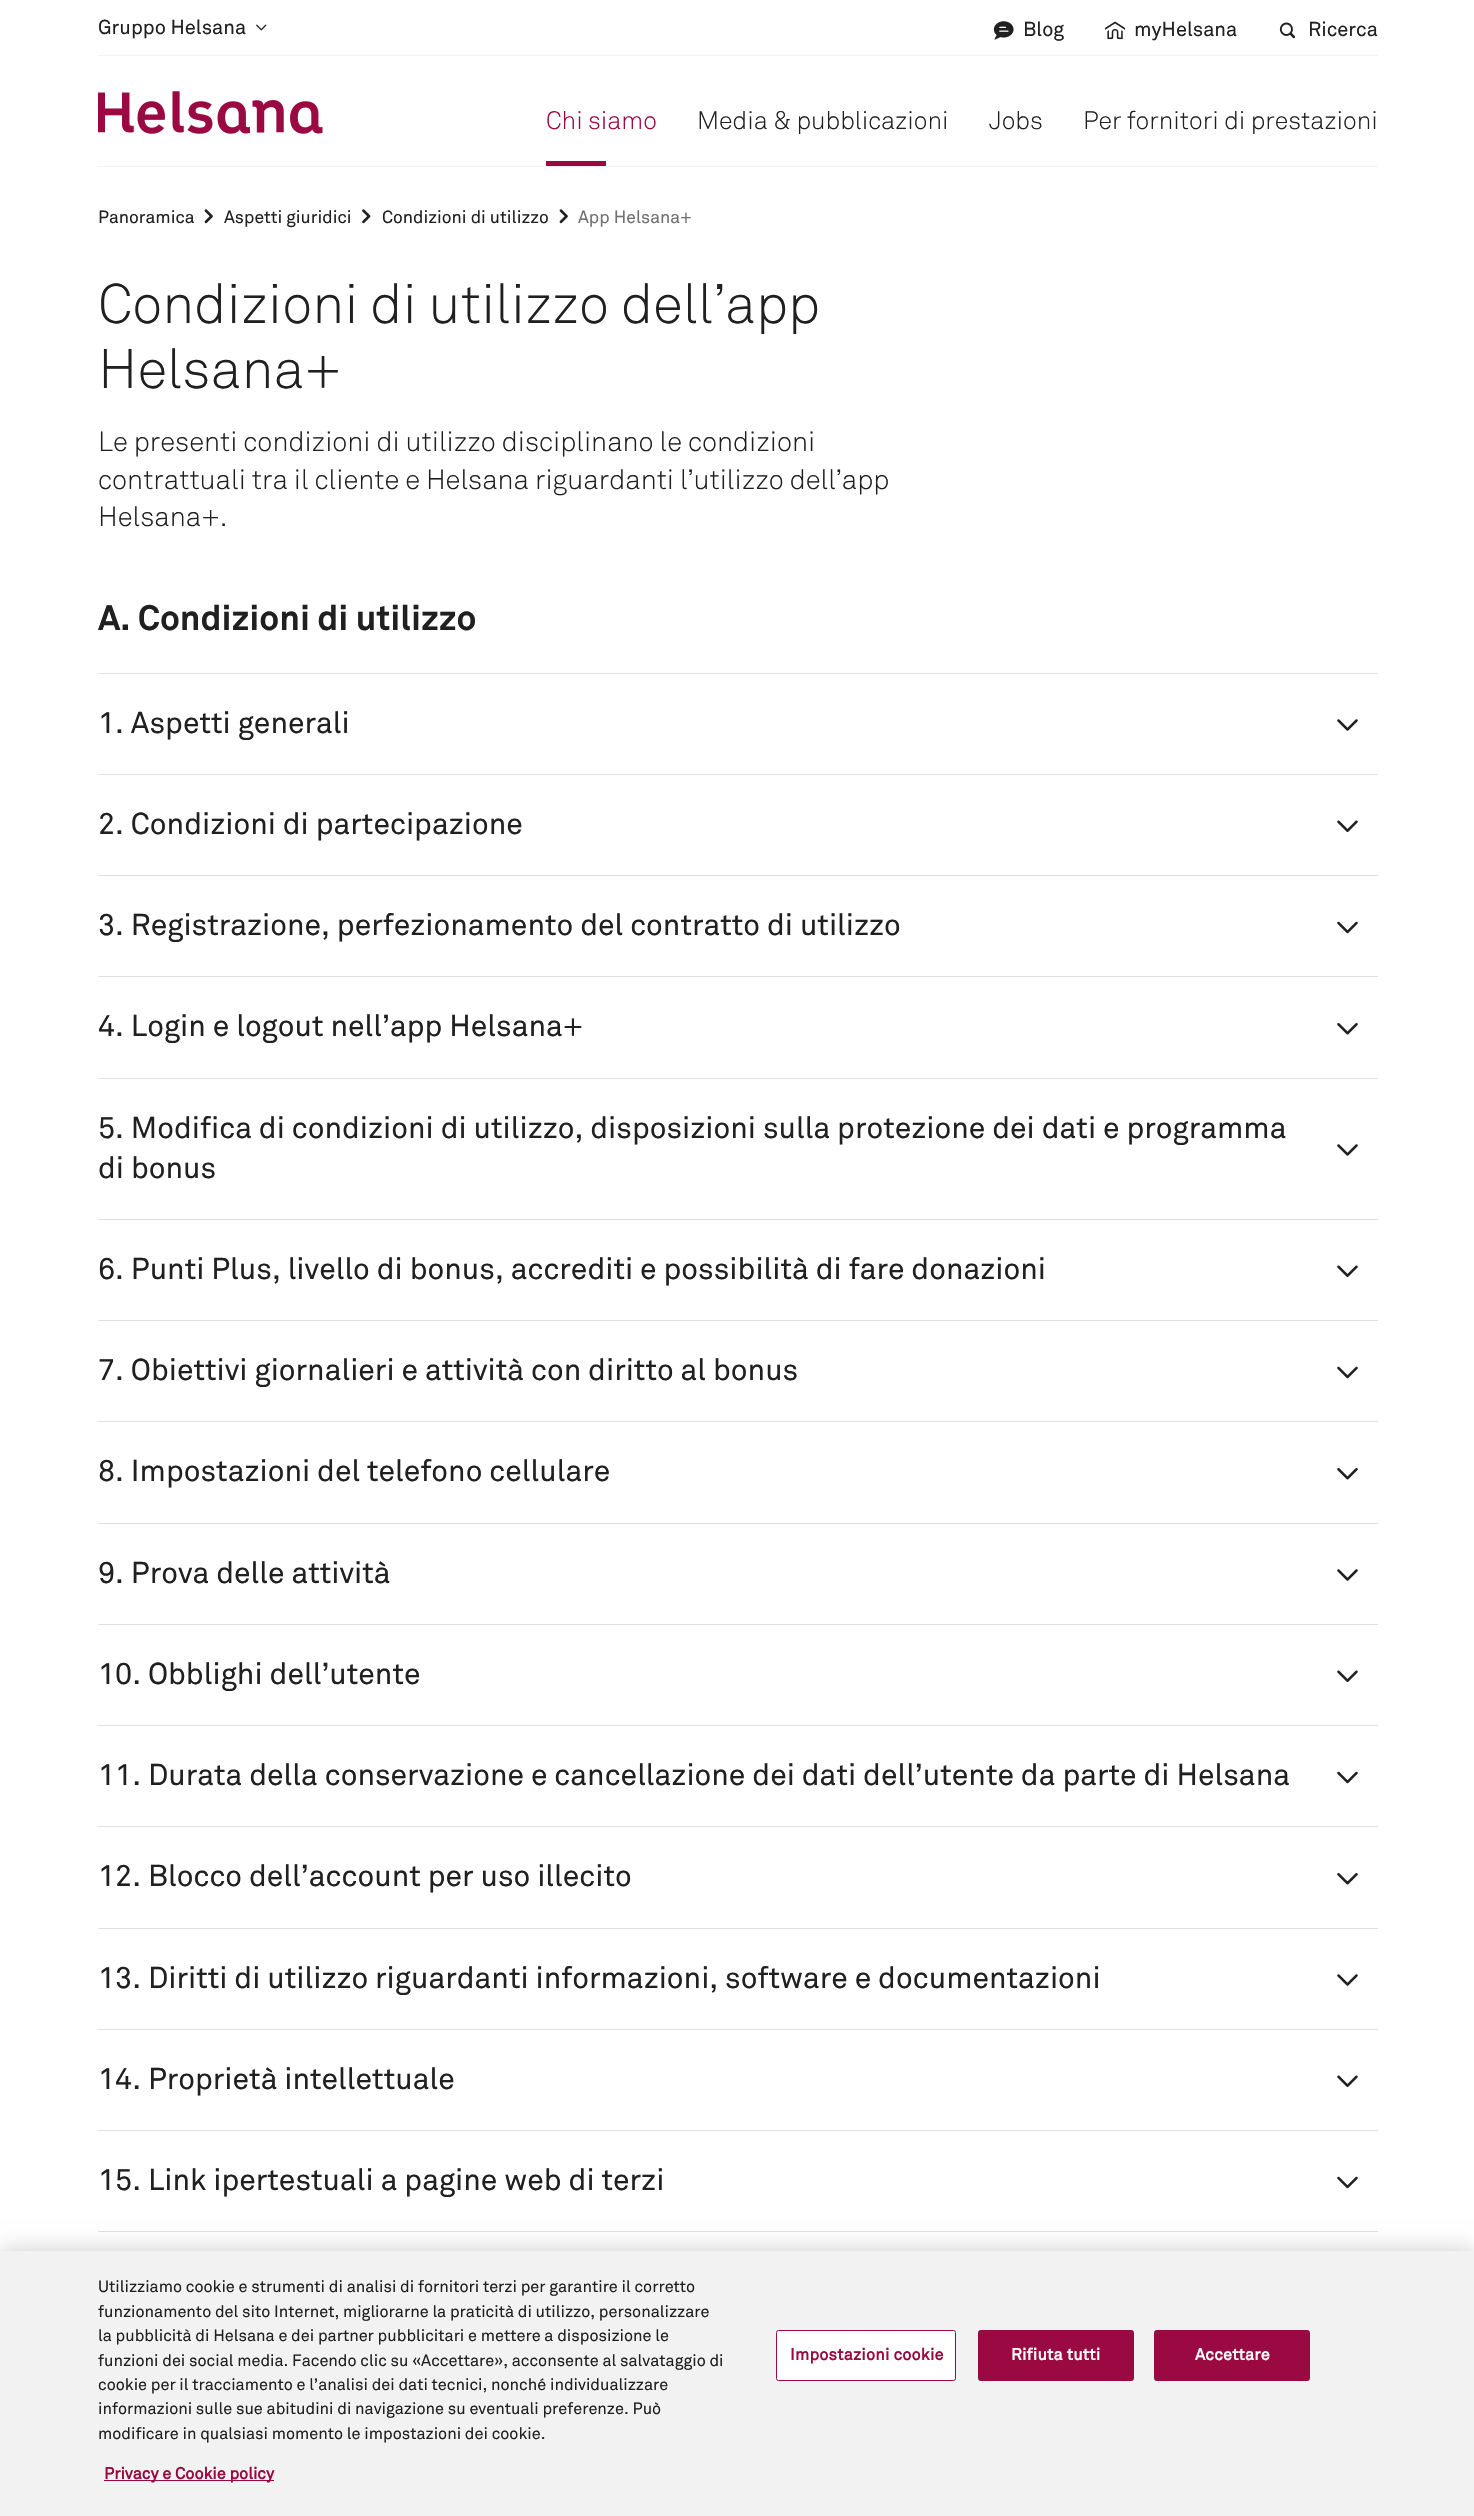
void draw(SkCanvas* canvas) {
  SkPaint paint;
  paint.setAntiAlias(true);
  auto face = [&](const char* family, int weight, float size, bool italic = false) {
    SkFontStyle style(weight, SkFontStyle::kNormal_Width,
      italic ? SkFontStyle::kItalic_Slant : SkFontStyle::kUpright_Slant);
    SkFont result(fontMgr->matchFamilyStyle(family, style), size);
    result.setSubpixel(true);
    return result;
  };
  auto writeSpaced = [&](const char* s, float x, float y, const SkFont& font, const SkPaint& ink, float letter, float word) {
    std::vector<SkGlyphID> glyphs(font.countText(s, strlen(s), SkTextEncoding::kUTF8));
    std::vector<float> xs(glyphs.size());
    font.textToGlyphs(s, strlen(s), SkTextEncoding::kUTF8, glyphs);
    font.getXPos(glyphs, xs, x);
    float extra = 0;
    for (size_t i = 0; i < glyphs.size(); i++) {
      xs[i] += extra;
      extra += letter + word * (glyphs[i] == font.unicharToGlyph(' '));
    }
    canvas->drawTextBlob(SkTextBlob::MakeFromPosHGlyphs(glyphs, xs, y, font), 0, 0, ink);
  };
  auto paste = [&](const char* path, float x, float y, float w, float h) {
    auto image = SkImages::DeferredFromEncodedData(SkData::MakeFromFileName(path));
    canvas->drawImageRect(image, SkRect::MakeXYWH(x, y, w, h), SkSamplingOptions());
  };
  canvas->clear(0xffffffff);
  paint.setColor(0xfff2f2f2);
  canvas->drawRect(SkRect::MakeXYWH(98, 55, 1280, 1), paint);
  paste("img/1.png", 256, 24, 11, 7);
  paste("img/2.png", 993, 21, 21, 19);
  paste("img/3.png", 1105, 21, 20, 19);
  paste("img/4.png", 1279, 22, 16, 17);
  paste("img/5.png", 98, 91, 225, 43);
  paint.setColor(0xff9a0941);
  canvas->drawRect(SkRect::MakeXYWH(546, 161, 60, 5), paint);
  paint.setColor(0xfff2f2f2);
  canvas->drawRect(SkRect::MakeXYWH(98, 166, 1280, 1), paint);
  paste("img/6.png", 204, 209, 9, 15);
  paste("img/7.png", 362, 209, 9, 15);
  paste("img/6.png", 559, 209, 9, 15);
  paint.setColor(0xffe0e0e0);
  canvas->drawRect(SkRect::MakeXYWH(98, 673, 1280, 1), paint);
  canvas->drawRect(SkRect::MakeXYWH(98, 774, 1280, 1), paint);
  paste("img/8.png", 1337, 719, 21, 12);
  canvas->drawRect(SkRect::MakeXYWH(98, 875, 1280, 1), paint);
  paste("img/9.png", 1337, 820, 21, 12);
  canvas->drawRect(SkRect::MakeXYWH(98, 976, 1280, 1), paint);
  paste("img/10.png", 1337, 921, 21, 13);
  canvas->drawRect(SkRect::MakeXYWH(98, 1078, 1280, 1), paint);
  paste("img/11.png", 1337, 1023, 21, 12);
  canvas->drawRect(SkRect::MakeXYWH(98, 1219, 1280, 1), paint);
  paste("img/8.png", 1337, 1144, 21, 12);
  canvas->drawRect(SkRect::MakeXYWH(98, 1320, 1280, 1), paint);
  paste("img/9.png", 1337, 1265, 21, 12);
  canvas->drawRect(SkRect::MakeXYWH(98, 1421, 1280, 1), paint);
  paste("img/10.png", 1337, 1366, 21, 13);
  canvas->drawRect(SkRect::MakeXYWH(98, 1523, 1280, 1), paint);
  paste("img/11.png", 1337, 1468, 21, 12);
  canvas->drawRect(SkRect::MakeXYWH(98, 1624, 1280, 1), paint);
  paste("img/8.png", 1337, 1569, 21, 12);
  canvas->drawRect(SkRect::MakeXYWH(98, 1725, 1280, 1), paint);
  paste("img/9.png", 1337, 1670, 21, 12);
  canvas->drawRect(SkRect::MakeXYWH(98, 1826, 1280, 1), paint);
  paste("img/10.png", 1337, 1771, 21, 13);
  canvas->drawRect(SkRect::MakeXYWH(98, 1928, 1280, 1), paint);
  paste("img/11.png", 1337, 1873, 21, 12);
  canvas->drawRect(SkRect::MakeXYWH(98, 2029, 1280, 1), paint);
  paste("img/8.png", 1337, 1974, 21, 12);
  canvas->drawRect(SkRect::MakeXYWH(98, 2130, 1280, 1), paint);
  paste("img/9.png", 1337, 2075, 21, 12);
  canvas->drawRect(SkRect::MakeXYWH(98, 2231, 1280, 1), paint);
  paste("img/10.png", 1337, 2176, 21, 13);
  paint.setColor(0x33000000);
  paint.setMaskFilter(SkMaskFilter::MakeBlur(kNormal_SkBlurStyle, 11));
  canvas->drawRect(SkRect::MakeXYWH(0, 2251, 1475, 265), paint);
  paint.setMaskFilter(nullptr);
  paint.setColor(0xfff2f2f2);
  canvas->drawRect(SkRect::MakeXYWH(0, 2251, 1474, 265), paint);
  paint.setColor(0xff9a0941);
  canvas->drawRect(SkRect::MakeXYWH(104, 2480, 170, 1), paint);
  paint.setColor(0xffffffff);
  canvas->drawRoundRect(SkRect::MakeXYWH(776.5f, 2330.5f, 179, 50), 2, 2, paint);
  paint.setStroke(true);
  paint.setStrokeWidth(1);
  paint.setColor(0xff9a0941);
  canvas->drawRoundRect(SkRect::MakeXYWH(776.5f, 2330.5f, 179, 50), 2, 2, paint);
  paint.setStroke(false);
  canvas->drawRoundRect(SkRect::MakeXYWH(978.5f, 2330.5f, 155, 50), 2, 2, paint);
  paint.setStroke(true);
  canvas->drawRoundRect(SkRect::MakeXYWH(978.5f, 2330.5f, 155, 50), 2, 2, paint);
  paint.setStroke(false);
  canvas->drawRoundRect(SkRect::MakeXYWH(1154.5f, 2330.5f, 155, 50), 2, 2, paint);
  paint.setStroke(true);
  canvas->drawRoundRect(SkRect::MakeXYWH(1154.5f, 2330.5f, 155, 50), 2, 2, paint);
  auto f0 = face("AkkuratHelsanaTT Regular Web", 400, 20);
  paint.setStroke(false);
  paint.setColor(0xff202020);
  {
    const struct { const char* s; float x, y; } items[] = {
      {"Gruppo Helsana", 98, 34},
      {"Blog", 1023, 36},
      {"myHelsana", 1134, 36},
      {"Ricerca", 1308, 36},
    };
    for (auto [s, x, y] : items) {
      canvas->drawString(s, x, y, f0, paint);
    }
  }
  auto f1 = face("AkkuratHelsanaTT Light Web", 300, 25);
  paint.setColor(0xff9a0941);
  canvas->drawString("Chi siamo", 546, 129, f1, paint);
  paint.setColor(0xff202020);
  {
    const struct { const char* s; float x, y; } items[] = {
      {"Media & pubblicazioni", 697, 129},
      {"Jobs", 989, 129},
      {"Per fornitori di prestazioni", 1083, 129},
    };
    for (auto [s, x, y] : items) {
      canvas->drawString(s, x, y, f1, paint);
    }
  }
  auto f2 = face("AkkuratHelsanaTT Regular Web", 400, 17.5f);
  {
    const struct { const char* s; float x, y; } items[] = {
      {"Panoramica", 98, 223},
      {"Aspetti giuridici", 224, 223},
      {"Condizioni di utilizzo", 382, 223},
    };
    for (auto [s, x, y] : items) {
      canvas->drawString(s, x, y, f2, paint);
    }
  }
  paint.setColor(0xff707070);
  canvas->drawString("App Helsana+", 578, 223, f2, paint);
  auto f3 = face("AkkuratHelsanaTT Light Web", 300, 55);
  paint.setColor(0xff202020);
  canvas->drawString("Condizioni di utilizzo dell’app", 98, 323, f3, paint);
  canvas->drawString("Helsana+", 98, 388, f3, paint);
  auto f4 = face("AkkuratHelsanaTT Light Web", 300, 27.5f);
  {
    const struct { const char* s; float x, y; } items[] = {
      {"Le presenti condizioni di utilizzo disciplinano le condizioni", 98, 451},
      {"contrattuali tra il cliente e Helsana riguardanti l’utilizzo dell’app", 98, 489},
      {"Helsana+.", 98, 526},
    };
    for (auto [s, x, y] : items) {
      canvas->drawString(s, x, y, f4, paint);
    }
  }
  auto f5 = face("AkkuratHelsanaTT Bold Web", 700, 35);
  canvas->drawString("A. Condizioni di utilizzo", 98, 630, f5, paint);
  auto f6 = face("AkkuratHelsanaTT Regular Web", 400, 30);
  {
    const struct { const char* s; float x, y; } items[] = {
      {"1. Aspetti generali", 98, 733},
      {"2. Condizioni di partecipazione", 98, 834},
      {"3. Registrazione, perfezionamento del contratto di utilizzo", 98, 935},
      {"4. Login e logout nell’app Helsana+", 98, 1036},
      {"5. Modifica di condizioni di utilizzo, disposizioni sulla protezione dei dati e programma", 98, 1138},
      {"di bonus", 98, 1178},
      {"6. Punti Plus, livello di bonus, accrediti e possibilità di fare donazioni", 98, 1279},
      {"7. Obiettivi giornalieri e attività con diritto al bonus", 98, 1380},
      {"8. Impostazioni del telefono cellulare", 98, 1481},
      {"9. Prova delle attività", 98, 1583},
      {"10. Obblighi dell’utente", 98, 1684},
      {"11. Durata della conservazione e cancellazione dei dati dell’utente da parte di Helsana", 98, 1785},
      {"12. Blocco dell’account per uso illecito", 98, 1886},
      {"13. Diritti di utilizzo riguardanti informazioni, software e documentazioni", 98, 1988},
      {"14. Proprietà intellettuale", 98, 2089},
      {"15. Link ipertestuali a pagine web di terzi", 98, 2190},
    };
    for (auto [s, x, y] : items) {
      canvas->drawString(s, x, y, f6, paint);
    }
  }
  auto f7 = face("AkkuratHelsanaTT Regular Web", 400, 16.25f);
  {
    const struct { const char* s; float x, y; } items[] = {
      {"Utilizziamo cookie e strumenti di analisi di fornitori terzi per garantire il corretto", 98, 2292},
      {"funzionamento del sito Internet, migliorarne la praticità di utilizzo, personalizzare", 98, 2317},
      {"la pubblicità di Helsana e dei partner pubblicitari e mettere a disposizione le", 98, 2341},
      {"funzioni dei social media. Facendo clic su «Accettare», acconsente al salvataggio di", 98, 2366},
      {"cookie per il tracciamento e l’analisi dei dati tecnici, nonché individualizzare", 98, 2390},
      {"informazioni sulle sue abitudini di navigazione su eventuali preferenze. Può", 98, 2414},
      {"modificare in qualsiasi momento le impostazioni dei cookie.", 98, 2439},
    };
    for (auto [s, x, y] : items) {
      canvas->drawString(s, x, y, f7, paint);
    }
  }
  auto f8 = face("AkkuratHelsanaTT Regular Web", 700, 16.25f);
  paint.setColor(0xff9a0941);
  canvas->drawString("Privacy e Cookie policy", 104, 2479, f8, paint);
  writeSpaced("Impostazioni cookie", 790, 2360, f8, paint, 0.2f, 0);
  paint.setColor(0xffffffff);
  writeSpaced("Rifiuta tutti", 1011, 2360, f8, paint, 0.2f, 0);
  writeSpaced("Accettare", 1195, 2360, f8, paint, 0.2f, 0);
}
